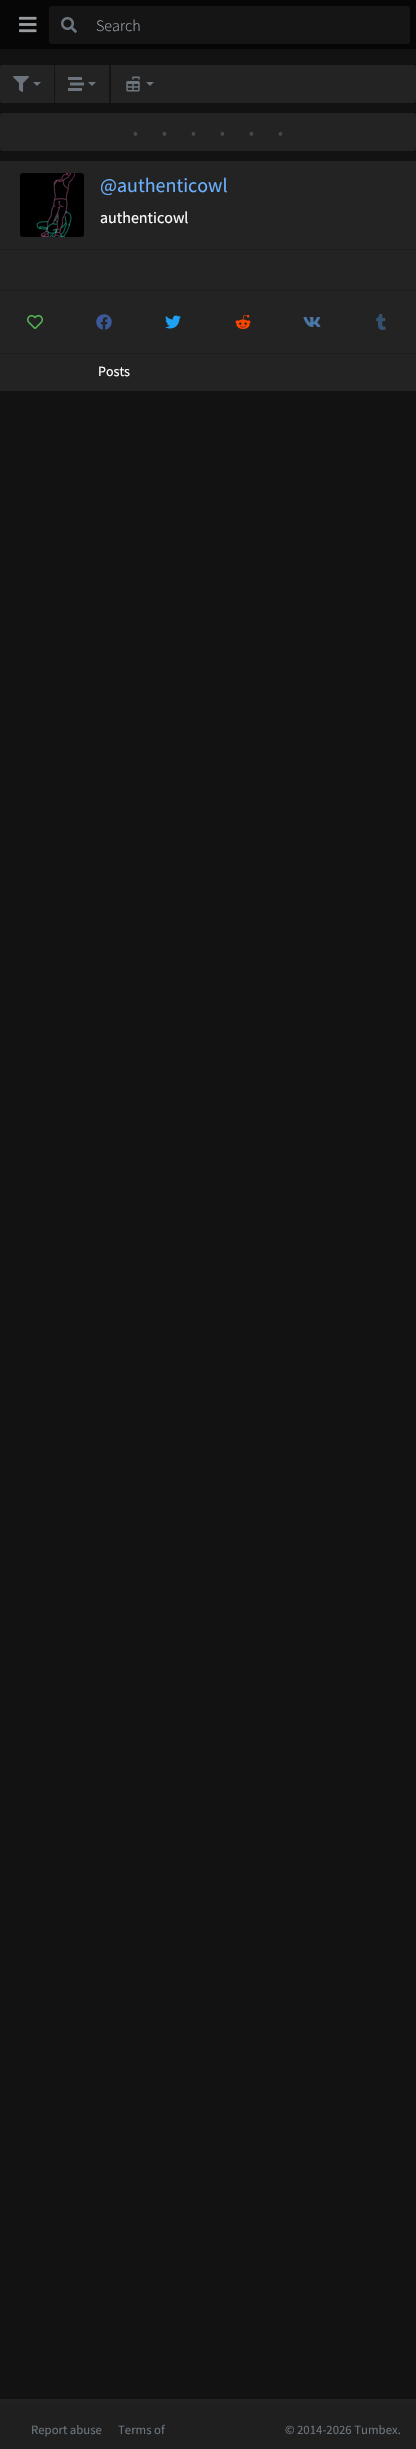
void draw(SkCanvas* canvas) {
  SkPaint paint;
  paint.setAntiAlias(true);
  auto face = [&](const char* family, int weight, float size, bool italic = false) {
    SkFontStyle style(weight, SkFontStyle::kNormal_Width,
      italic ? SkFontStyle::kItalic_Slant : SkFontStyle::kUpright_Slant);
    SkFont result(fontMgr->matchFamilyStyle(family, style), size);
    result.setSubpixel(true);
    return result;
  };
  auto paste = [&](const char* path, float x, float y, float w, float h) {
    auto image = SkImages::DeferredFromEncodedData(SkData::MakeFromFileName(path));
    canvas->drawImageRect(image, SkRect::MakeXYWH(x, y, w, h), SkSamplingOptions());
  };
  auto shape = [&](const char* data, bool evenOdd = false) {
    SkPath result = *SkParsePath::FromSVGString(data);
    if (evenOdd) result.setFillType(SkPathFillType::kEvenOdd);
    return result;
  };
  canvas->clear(0xff121212);
  paint.setColor(0xff060606);
  canvas->drawRect(SkRect::MakeXYWH(0, 0, 416, 49), paint);
  paste("img/1.png", 19, 16, 18, 17);
  paint.setColor(0xff151515);
  canvas->drawRoundRect(SkRect::MakeXYWH(49, 6, 361, 38), 3, 3, paint);
  paste("img/2.png", 61, 17, 16, 16);
  paint.setColor(0xff232323);
  canvas->drawRoundRect(SkRect::MakeXYWH(0, 65, 416, 38), 3, 3, paint);
  paint.setColor(0xff151515);
  canvas->drawRect(SkRect::MakeXYWH(54, 65, 1, 38), paint);
  paint.setColor(0xff232323);
  canvas->drawPath(shape("M3 65H54V103H3C1.5 103 0 101.5 0 100V68C0 66.5 1.5 65 3 65Z"), paint);
  paste("img/3.png", 13, 76, 16, 16);
  paint.setColor(0xff6c757d);
  canvas->drawPath(shape("M33 82H41L37 86Z"), paint);
  paint.setColor(0xff151515);
  canvas->drawRect(SkRect::MakeXYWH(109, 65, 2, 38), paint);
  paste("img/4.png", 68, 77, 16, 14);
  paint.setColor(0xff6c757d);
  canvas->drawPath(shape("M88 82H96L92 86Z"), paint);
  paste("img/5.png", 126, 76, 14, 16);
  canvas->drawPath(shape("M146 82H154L150 86Z"), paint);
  paint.setColor(0xff232323);
  canvas->drawRoundRect(SkRect::MakeXYWH(0, 113, 416, 38), 3, 3, paint);
  canvas->drawRect(SkRect::MakeXYWH(0, 161, 416, 230), paint);
  paint.setColor(0xff1e1e1e);
  canvas->drawRect(SkRect::MakeXYWH(0, 249, 416, 1), paint);
  paste("img/6.png", 20, 173, 64, 64);
  canvas->drawRect(SkRect::MakeXYWH(0, 290, 416, 1), paint);
  canvas->drawRect(SkRect::MakeXYWH(0, 353, 416, 1), paint);
  paste("img/7.png", 27, 315, 16, 14);
  paste("img/8.png", 96, 314, 16, 16);
  paste("img/9.png", 165, 315, 16, 14);
  paste("img/10.png", 235, 315, 16, 14);
  paste("img/11.png", 303, 317, 18, 10);
  paste("img/12.png", 376, 314, 10, 16);
  paint.setColor(0xff1f1f1f);
  canvas->drawRect(SkRect::MakeXYWH(0, 2404, 416, 45), paint);
  paint.setColor(0xff212121);
  canvas->drawRect(SkRect::MakeXYWH(0, 2399, 416, 5), paint);
  auto f0 = face("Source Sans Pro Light", 300, 16);
  paint.setColor(0xff9ea9ae);
  canvas->drawString("Search", 96, 31, f0, paint);
  auto f1 = face("Source Sans Pro", 400, 16);
  paint.setColor(0xff4c4645);
  {
    const struct { const char* s; float x, y; } items[] = {
      {"•", 133, 138},
      {"•", 162, 138},
      {"•", 191, 138},
      {"•", 220, 138},
      {"•", 249, 138},
      {"•", 278, 138},
    };
    for (auto [s, x, y] : items) {
      canvas->drawString(s, x, y, f1, paint);
    }
  }
  auto f2 = face("Source Sans Pro", 400, 20);
  paint.setColor(0xff6ab0fb);
  canvas->drawString("@authenticowl", 100, 192, f2, paint);
  paint.setColor(0xffffffff);
  canvas->drawString("authenticowl", 100, 223, f1, paint);
  auto f3 = face("Source Sans Pro", 400, 14);
  canvas->drawString("Posts", 98, 376, f3, paint);
  auto f4 = face("Source Sans Pro", 400, 12.75f);
  paint.setColor(0xff6c757d);
  {
    const struct { const char* s; float x, y; } items[] = {
      {"Report abuse", 31, 2434},
      {"Terms of", 118, 2434},
      {"© 2014-2026 Tumbex.", 285, 2434},
    };
    for (auto [s, x, y] : items) {
      canvas->drawString(s, x, y, f4, paint);
    }
  }
}
